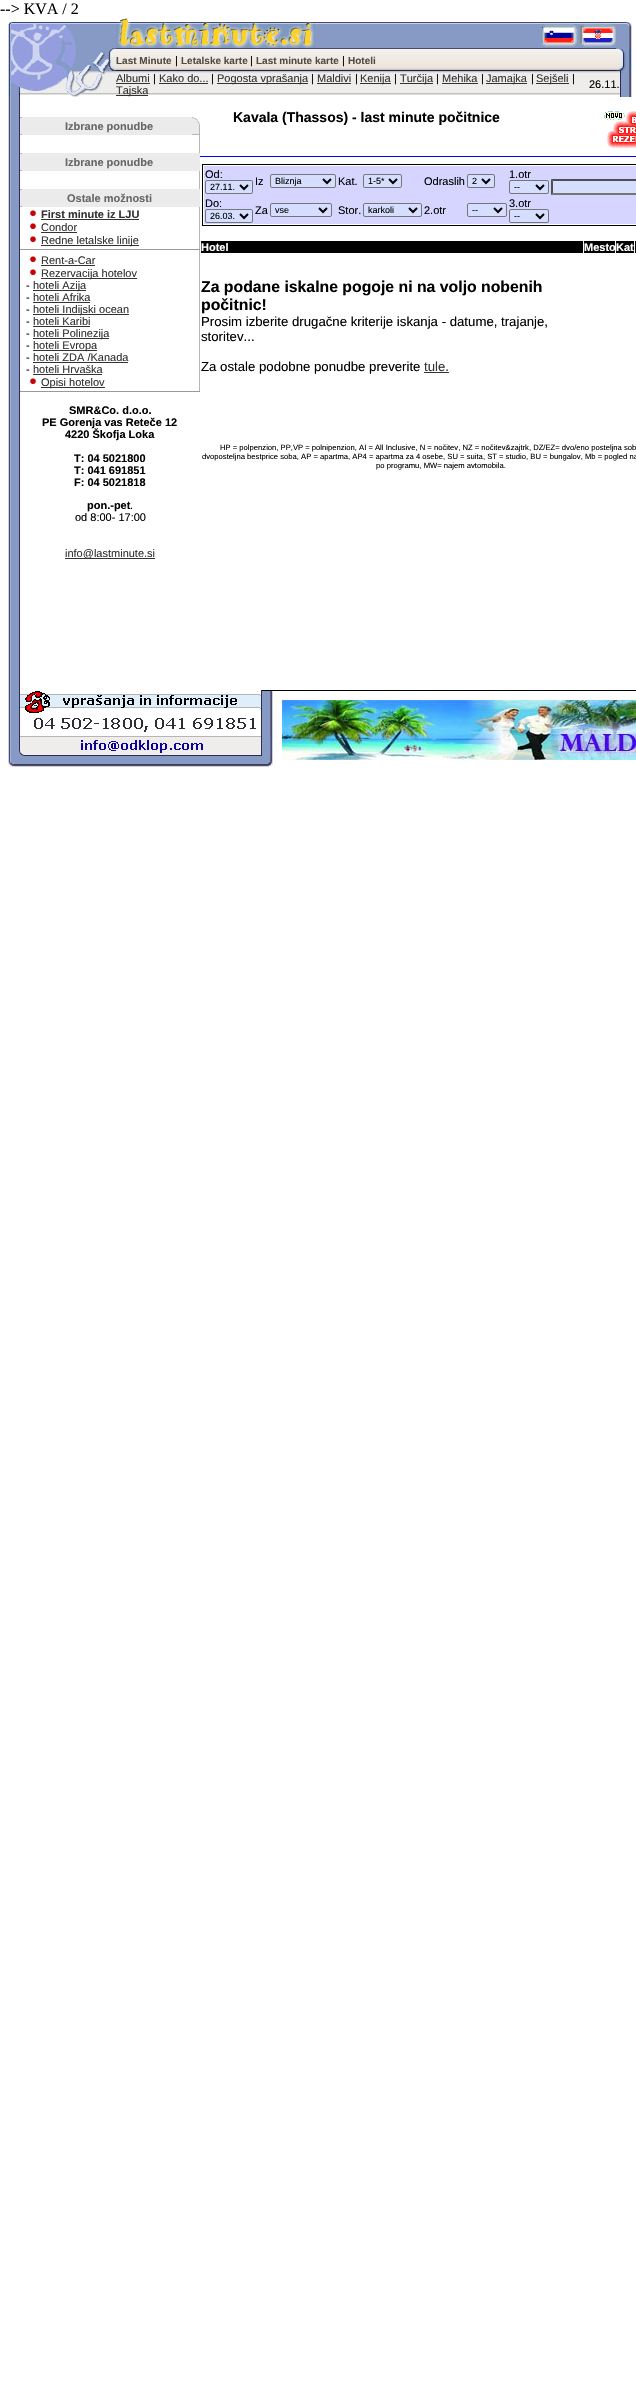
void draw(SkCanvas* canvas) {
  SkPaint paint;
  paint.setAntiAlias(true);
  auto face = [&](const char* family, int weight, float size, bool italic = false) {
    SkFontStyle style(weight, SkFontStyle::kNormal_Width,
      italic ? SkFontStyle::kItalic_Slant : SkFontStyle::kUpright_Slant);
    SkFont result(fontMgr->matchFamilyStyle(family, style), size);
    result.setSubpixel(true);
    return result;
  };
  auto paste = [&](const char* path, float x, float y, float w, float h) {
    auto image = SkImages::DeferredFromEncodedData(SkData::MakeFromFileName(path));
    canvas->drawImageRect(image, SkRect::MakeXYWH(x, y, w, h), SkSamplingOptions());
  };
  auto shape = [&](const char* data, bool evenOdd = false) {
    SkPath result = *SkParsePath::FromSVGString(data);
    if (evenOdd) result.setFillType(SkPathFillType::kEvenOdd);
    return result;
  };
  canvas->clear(0xffffffff);
  paste("img/1.png", 8, 49, 108, 22);
  paste("img/2.png", 116, 49, 500, 22);
  paste("img/3.png", 616, 49, 16, 22);
  paste("img/4.png", 8, 71, 108, 22);
  paste("img/5.png", 8, 93, 108, 4);
  paste("img/6.png", 116, 71, 473, 24);
  {
    const struct { float x, y, w, h; SkColor color; } items[] = {
      {116, 83, 34, 1, 0xff333333},
      {159, 83, 49, 1, 0xff333333},
      {217, 83, 91, 1, 0xff333333},
      {317, 83, 34, 1, 0xff333333},
      {360, 83, 31, 1, 0xff333333},
      {400, 83, 33, 1, 0xff333333},
      {442, 83, 36, 1, 0xff333333},
      {486, 83, 41, 1, 0xff333333},
      {536, 83, 33, 1, 0xff333333},
      {116, 95, 32, 1, 0xff333333},
    };
    for (auto [x, y, w, h, color] : items) {
      paint.setColor(color);
      canvas->drawRect(SkRect::MakeXYWH(x, y, w, h), paint);
    }
  }
  paste("img/7.png", 589, 71, 31, 24);
  paste("img/8.png", 620, 71, 12, 26);
  paste("img/9.png", 8, 22, 108, 27);
  paste("img/10.png", 394, 22, 222, 27);
  paste("img/11.png", 540, 22, 38, 25);
  paste("img/12.png", 578, 22, 38, 25);
  paste("img/13.png", 616, 22, 16, 27);
  paste("img/14.png", 116, 22, 278, 27);
  paste("img/15.png", 116, 18, 199, 30);
  paste("img/16.png", 8, 97, 12, 593);
  paint.setColor(0xffebebeb);
  canvas->drawRect(SkRect::MakeXYWH(22, 117, 170, 18), paint);
  paste("img/17.png", 20, 117, 2, 18);
  paste("img/18.png", 192, 117, 8, 18);
  paint.setColor(0xffb6b6b5);
  canvas->drawRect(SkRect::MakeXYWH(199, 135, 1, 18), paint);
  paint.setColor(0xffebebeb);
  canvas->drawRect(SkRect::MakeXYWH(22, 153, 178, 18), paint);
  paste("img/17.png", 20, 153, 2, 18);
  paint.setColor(0xffb6b6b5);
  canvas->drawRect(SkRect::MakeXYWH(199, 171, 1, 18), paint);
  paint.setColor(0xffebebeb);
  canvas->drawRect(SkRect::MakeXYWH(22, 189, 178, 18), paint);
  paste("img/17.png", 20, 189, 2, 18);
  paste("img/19.png", 30, 210, 6, 6);
  paint.setColor(0xff333333);
  canvas->drawRect(SkRect::MakeXYWH(41, 219, 98, 1), paint);
  paste("img/19.png", 30, 223, 6, 6);
  canvas->drawRect(SkRect::MakeXYWH(41, 232, 36, 1), paint);
  paste("img/19.png", 30, 236, 6, 6);
  {
    const struct { float x, y, w, h; SkColor color; } items[] = {
      {41, 245, 98, 1, 0xff333333},
      {199, 207, 1, 42, 0xffb6b6b5},
      {20, 249, 180, 1, 0xff999999},
    };
    for (auto [x, y, w, h, color] : items) {
      paint.setColor(color);
      canvas->drawRect(SkRect::MakeXYWH(x, y, w, h), paint);
    }
  }
  paste("img/19.png", 30, 256, 6, 6);
  paint.setColor(0xff333333);
  canvas->drawRect(SkRect::MakeXYWH(41, 265, 54, 1), paint);
  paste("img/19.png", 30, 269, 6, 6);
  {
    const struct { float x, y, w, h; SkColor color; } items[] = {
      {41, 278, 96, 1, 0xff333333},
      {33, 290, 53, 1, 0xff333333},
      {33, 302, 57, 1, 0xff333333},
      {33, 314, 96, 1, 0xff333333},
      {33, 326, 57, 1, 0xff333333},
      {33, 338, 76, 1, 0xff333333},
      {33, 350, 64, 1, 0xff333333},
      {33, 362, 95, 1, 0xff333333},
      {33, 374, 69, 1, 0xff333333},
    };
    for (auto [x, y, w, h, color] : items) {
      paint.setColor(color);
      canvas->drawRect(SkRect::MakeXYWH(x, y, w, h), paint);
    }
  }
  paste("img/19.png", 30, 378, 6, 6);
  {
    const struct { float x, y, w, h; SkColor color; } items[] = {
      {41, 387, 64, 1, 0xff333333},
      {199, 250, 1, 141, 0xffb6b6b5},
      {20, 391, 180, 1, 0xff999999},
      {65, 558, 90, 1, 0xff333333},
    };
    for (auto [x, y, w, h, color] : items) {
      paint.setColor(color);
      canvas->drawRect(SkRect::MakeXYWH(x, y, w, h), paint);
    }
  }
  paste("img/20.png", 604, 111, 32, 37);
  paint.setColor(0xff0000ff);
  canvas->drawRect(SkRect::MakeXYWH(200, 156, 436, 1), paint);
  paint.setStroke(true);
  paint.setStrokeWidth(1);
  paint.setColor(0xff000000);
  canvas->drawRect(SkRect::MakeXYWH(202.5f, 164.5f, 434, 61), paint);
  paint.setStroke(false);
  paint.setColor(0xffd5d5ff);
  canvas->drawRect(SkRect::MakeXYWH(204, 166, 432, 58), paint);
  paint.setColor(0xffd5deff);
  canvas->drawRoundRect(SkRect::MakeXYWH(205.5f, 180.5f, 47, 13), 1.5f, 1.5f, paint);
  paint.setStroke(true);
  paint.setColor(0xff767676);
  canvas->drawRoundRect(SkRect::MakeXYWH(205.5f, 180.5f, 47, 13), 1.5f, 1.5f, paint);
  paint.setStrokeWidth(2);
  paint.setColor(0xff000000);
  canvas->drawPath(shape("M240 185L244 189L248 185"), paint);
  paint.setStroke(false);
  paint.setColor(0xffd5deff);
  canvas->drawRoundRect(SkRect::MakeXYWH(270.5f, 174.5f, 65, 13), 1.5f, 1.5f, paint);
  paint.setStroke(true);
  paint.setStrokeWidth(1);
  paint.setColor(0xff767676);
  canvas->drawRoundRect(SkRect::MakeXYWH(270.5f, 174.5f, 65, 13), 1.5f, 1.5f, paint);
  paint.setStrokeWidth(2);
  paint.setColor(0xff000000);
  canvas->drawPath(shape("M323 179L327 183L331 179"), paint);
  paint.setStroke(false);
  paint.setColor(0xffd5deff);
  canvas->drawRoundRect(SkRect::MakeXYWH(363.5f, 174.5f, 38, 13), 1.5f, 1.5f, paint);
  paint.setStroke(true);
  paint.setStrokeWidth(1);
  paint.setColor(0xff767676);
  canvas->drawRoundRect(SkRect::MakeXYWH(363.5f, 174.5f, 38, 13), 1.5f, 1.5f, paint);
  paint.setStrokeWidth(2);
  paint.setColor(0xff000000);
  canvas->drawPath(shape("M389 179L393 183L397 179"), paint);
  paint.setStroke(false);
  paint.setColor(0xffd5deff);
  canvas->drawRoundRect(SkRect::MakeXYWH(467.5f, 174.5f, 27, 13), 1.5f, 1.5f, paint);
  paint.setStroke(true);
  paint.setStrokeWidth(1);
  paint.setColor(0xff767676);
  canvas->drawRoundRect(SkRect::MakeXYWH(467.5f, 174.5f, 27, 13), 1.5f, 1.5f, paint);
  paint.setStrokeWidth(2);
  paint.setColor(0xff000000);
  canvas->drawPath(shape("M482 179L486 183L490 179"), paint);
  paint.setStroke(false);
  paint.setColor(0xffd5deff);
  canvas->drawRoundRect(SkRect::MakeXYWH(509.5f, 180.5f, 39, 13), 1.5f, 1.5f, paint);
  paint.setStroke(true);
  paint.setStrokeWidth(1);
  paint.setColor(0xff767676);
  canvas->drawRoundRect(SkRect::MakeXYWH(509.5f, 180.5f, 39, 13), 1.5f, 1.5f, paint);
  paint.setStrokeWidth(2);
  paint.setColor(0xff000000);
  canvas->drawPath(shape("M536 185L540 189L544 185"), paint);
  paint.setStroke(false);
  paint.setColor(0xffd5deff);
  canvas->drawRect(SkRect::MakeXYWH(551, 179, 85, 16), paint);
  paint.setColor(0xff4f4f4f);
  canvas->drawPath(shape("M551 179H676L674 181H553Z"), paint);
  paint.setColor(0xff767676);
  canvas->drawPath(shape("M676 195H551L553 193H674Z"), paint);
  paint.setColor(0xff4f4f4f);
  canvas->drawPath(shape("M551 195V179L553 181V193Z"), paint);
  paint.setColor(0xffd5deff);
  canvas->drawRoundRect(SkRect::MakeXYWH(205.5f, 209.5f, 47, 13), 1.5f, 1.5f, paint);
  paint.setStroke(true);
  paint.setStrokeWidth(1);
  paint.setColor(0xff767676);
  canvas->drawRoundRect(SkRect::MakeXYWH(205.5f, 209.5f, 47, 13), 1.5f, 1.5f, paint);
  paint.setStrokeWidth(2);
  paint.setColor(0xff000000);
  canvas->drawPath(shape("M240 214L244 218L248 214"), paint);
  paint.setStroke(false);
  paint.setColor(0xffd5deff);
  canvas->drawRoundRect(SkRect::MakeXYWH(270.5f, 203.5f, 61, 13), 1.5f, 1.5f, paint);
  paint.setStroke(true);
  paint.setStrokeWidth(1);
  paint.setColor(0xff767676);
  canvas->drawRoundRect(SkRect::MakeXYWH(270.5f, 203.5f, 61, 13), 1.5f, 1.5f, paint);
  paint.setStrokeWidth(2);
  paint.setColor(0xff000000);
  canvas->drawPath(shape("M319 208L323 212L327 208"), paint);
  paint.setStroke(false);
  paint.setColor(0xffd5deff);
  canvas->drawRoundRect(SkRect::MakeXYWH(363.5f, 203.5f, 58, 13), 1.5f, 1.5f, paint);
  paint.setStroke(true);
  paint.setStrokeWidth(1);
  paint.setColor(0xff767676);
  canvas->drawRoundRect(SkRect::MakeXYWH(363.5f, 203.5f, 58, 13), 1.5f, 1.5f, paint);
  paint.setStrokeWidth(2);
  paint.setColor(0xff000000);
  canvas->drawPath(shape("M409 208L413 212L417 208"), paint);
  paint.setStroke(false);
  paint.setColor(0xffd5deff);
  canvas->drawRoundRect(SkRect::MakeXYWH(467.5f, 203.5f, 39, 13), 1.5f, 1.5f, paint);
  paint.setStroke(true);
  paint.setStrokeWidth(1);
  paint.setColor(0xff767676);
  canvas->drawRoundRect(SkRect::MakeXYWH(467.5f, 203.5f, 39, 13), 1.5f, 1.5f, paint);
  paint.setStrokeWidth(2);
  paint.setColor(0xff000000);
  canvas->drawPath(shape("M494 208L498 212L502 208"), paint);
  paint.setStroke(false);
  paint.setColor(0xffd5deff);
  canvas->drawRoundRect(SkRect::MakeXYWH(509.5f, 209.5f, 39, 13), 1.5f, 1.5f, paint);
  paint.setStroke(true);
  paint.setStrokeWidth(1);
  paint.setColor(0xff767676);
  canvas->drawRoundRect(SkRect::MakeXYWH(509.5f, 209.5f, 39, 13), 1.5f, 1.5f, paint);
  paint.setStrokeWidth(2);
  paint.setColor(0xff000000);
  canvas->drawPath(shape("M536 214L540 218L544 214"), paint);
  paint.setStroke(false);
  {
    const struct { float x, y, w, h; SkColor color; } items[] = {
      {201, 241, 382, 12, 0xff000000},
      {584, 241, 31, 12, 0xff000000},
      {616, 241, 18, 12, 0xff000000},
      {635, 241, 1, 12, 0xff000000},
      {424, 372, 25, 1, 0xff333333},
    };
    for (auto [x, y, w, h, color] : items) {
      paint.setColor(color);
      canvas->drawRect(SkRect::MakeXYWH(x, y, w, h), paint);
    }
  }
  paste("img/21.png", 8, 690, 16, 77);
  paste("img/22.png", 24, 694, 236, 73);
  paste("img/23.png", 25, 691, 231, 62);
  paste("img/24.png", 260, 690, 21, 77);
  paint.setColor(0xff000000);
  canvas->drawRect(SkRect::MakeXYWH(281, 690, 355, 1), paint);
  paste("img/25.png", 282, 700, 354, 60);
  auto f0 = face("Liberation Serif", 400, 16);
  canvas->drawString("--> KVA / 2", 0, 14, f0, paint);
  auto f1 = face("Liberation Sans", 700, 10);
  paint.setColor(0xff514b43);
  canvas->drawString("Last Minute", 116, 64, f1, paint);
  auto f2 = face("Liberation Sans", 400, 11);
  paint.setColor(0xff000000);
  canvas->drawString("|", 175, 64, f2, paint);
  paint.setColor(0xff514b43);
  canvas->drawString("Letalske karte", 181, 64, f1, paint);
  paint.setColor(0xff000000);
  canvas->drawString("|", 250, 64, f2, paint);
  paint.setColor(0xff514b43);
  canvas->drawString("Last minute karte", 256, 64, f1, paint);
  paint.setColor(0xff000000);
  canvas->drawString("|", 342, 64, f2, paint);
  paint.setColor(0xff514b43);
  canvas->drawString("Hoteli", 348, 64, f1, paint);
  paint.setColor(0xff333333);
  canvas->drawString("Albumi", 116, 82, f2, paint);
  paint.setColor(0xff000000);
  canvas->drawString("|", 153, 82, f2, paint);
  paint.setColor(0xff333333);
  canvas->drawString("Kako do...", 159, 82, f2, paint);
  paint.setColor(0xff000000);
  canvas->drawString("|", 211, 82, f2, paint);
  paint.setColor(0xff333333);
  canvas->drawString("Pogosta vprašanja", 217, 82, f2, paint);
  paint.setColor(0xff000000);
  canvas->drawString("|", 311, 82, f2, paint);
  paint.setColor(0xff333333);
  canvas->drawString("Maldivi", 317, 82, f2, paint);
  paint.setColor(0xff000000);
  canvas->drawString("|", 355, 82, f2, paint);
  paint.setColor(0xff333333);
  canvas->drawString("Kenija", 360, 82, f2, paint);
  paint.setColor(0xff000000);
  canvas->drawString("|", 394, 82, f2, paint);
  paint.setColor(0xff333333);
  canvas->drawString("Turčija", 400, 82, f2, paint);
  paint.setColor(0xff000000);
  canvas->drawString("|", 436, 82, f2, paint);
  paint.setColor(0xff333333);
  canvas->drawString("Mehika", 442, 82, f2, paint);
  paint.setColor(0xff000000);
  canvas->drawString("|", 481, 82, f2, paint);
  paint.setColor(0xff333333);
  canvas->drawString("Jamajka", 486, 82, f2, paint);
  paint.setColor(0xff000000);
  canvas->drawString("|", 531, 82, f2, paint);
  paint.setColor(0xff333333);
  canvas->drawString("Sejšeli", 536, 82, f2, paint);
  paint.setColor(0xff000000);
  canvas->drawString("|", 572, 82, f2, paint);
  paint.setColor(0xff333333);
  canvas->drawString("Tajska", 116, 94, f2, paint);
  paint.setColor(0xff000000);
  canvas->drawString("26.11.", 589, 88, f2, paint);
  auto f3 = face("Liberation Sans", 700, 14);
  canvas->drawString("Kavala (Thassos) - last minute počitnice", 233, 122, f3, paint);
  auto f4 = face("Liberation Sans", 700, 11);
  paint.setColor(0xff666666);
  {
    const struct { const char* s; float x, y; } items[] = {
      {"Izbrane ponudbe", 65, 130},
      {"Izbrane ponudbe", 65, 166},
      {"Ostale možnosti", 67, 202},
    };
    for (auto [s, x, y] : items) {
      canvas->drawString(s, x, y, f4, paint);
    }
  }
  paint.setColor(0xff333333);
  canvas->drawString("First minute iz LJU", 41, 218, f4, paint);
  {
    const struct { const char* s; float x, y; } items[] = {
      {"Condor", 41, 231},
      {"Redne letalske linije", 41, 244},
      {"Rent-a-Car", 41, 264},
      {"Rezervacija hotelov", 41, 277},
    };
    for (auto [s, x, y] : items) {
      canvas->drawString(s, x, y, f2, paint);
    }
  }
  paint.setColor(0xff000000);
  canvas->drawString("-", 26, 289, f2, paint);
  paint.setColor(0xff333333);
  canvas->drawString("hoteli Azija", 33, 289, f2, paint);
  paint.setColor(0xff000000);
  canvas->drawString("-", 26, 301, f2, paint);
  paint.setColor(0xff333333);
  canvas->drawString("hoteli Afrika", 33, 301, f2, paint);
  paint.setColor(0xff000000);
  canvas->drawString("-", 26, 313, f2, paint);
  paint.setColor(0xff333333);
  canvas->drawString("hoteli Indijski ocean", 33, 313, f2, paint);
  paint.setColor(0xff000000);
  canvas->drawString("-", 26, 325, f2, paint);
  paint.setColor(0xff333333);
  canvas->drawString("hoteli Karibi", 33, 325, f2, paint);
  paint.setColor(0xff000000);
  canvas->drawString("-", 26, 337, f2, paint);
  paint.setColor(0xff333333);
  canvas->drawString("hoteli Polinezija", 33, 337, f2, paint);
  paint.setColor(0xff000000);
  canvas->drawString("-", 26, 349, f2, paint);
  paint.setColor(0xff333333);
  canvas->drawString("hoteli Evropa", 33, 349, f2, paint);
  paint.setColor(0xff000000);
  canvas->drawString("-", 26, 361, f2, paint);
  paint.setColor(0xff333333);
  canvas->drawString("hoteli ZDA /Kanada", 33, 361, f2, paint);
  paint.setColor(0xff000000);
  canvas->drawString("-", 26, 373, f2, paint);
  paint.setColor(0xff333333);
  canvas->drawString("hoteli Hrvaška", 33, 373, f2, paint);
  canvas->drawString("Opisi hotelov", 41, 386, f2, paint);
  paint.setColor(0xff000000);
  {
    const struct { const char* s; float x, y; } items[] = {
      {"SMR&Co. d.o.o.", 69, 414},
      {"PE Gorenja vas Reteče 12", 42, 426},
      {"4220 Škofja Loka", 65, 438},
      {"T: 04 5021800", 74, 462},
      {"T: 041 691851", 74, 474},
      {"F: 04 5021818", 74, 486},
      {"pon.-pet", 87, 509},
    };
    for (auto [s, x, y] : items) {
      canvas->drawString(s, x, y, f4, paint);
    }
  }
  canvas->drawString(".", 130, 509, f2, paint);
  canvas->drawString("od 8:00- 17:00", 75, 521, f2, paint);
  paint.setColor(0xff333333);
  canvas->drawString("info@lastminute.si", 65, 557, f2, paint);
  paint.setColor(0xff000000);
  canvas->drawString("Od:", 205, 178, f2, paint);
  auto f5 = face("Liberation Sans", 400, 9);
  canvas->drawString("27.11.", 210, 190, f5, paint);
  canvas->drawString("Iz", 255, 185, f2, paint);
  canvas->drawString("Bliznja", 275, 184, f5, paint);
  canvas->drawString("Kat.", 338, 185, f2, paint);
  canvas->drawString("1-5*", 368, 184, f5, paint);
  canvas->drawString("Odraslih", 424, 185, f2, paint);
  canvas->drawString("2", 472, 184, f5, paint);
  canvas->drawString("1.otr", 509, 178, f2, paint);
  canvas->drawString("--", 514, 190, f5, paint);
  canvas->drawString("Do:", 205, 207, f2, paint);
  canvas->drawString("26.03.", 210, 219, f5, paint);
  canvas->drawString("Za", 255, 214, f2, paint);
  canvas->drawString("vse", 275, 213, f5, paint);
  canvas->drawString("Stor.", 338, 214, f2, paint);
  canvas->drawString("karkoli", 368, 213, f5, paint);
  canvas->drawString("2.otr", 424, 214, f2, paint);
  canvas->drawString("--", 472, 213, f5, paint);
  canvas->drawString("3.otr", 509, 207, f2, paint);
  canvas->drawString("--", 514, 219, f5, paint);
  paint.setColor(0xffffffff);
  {
    const struct { const char* s; float x, y; } items[] = {
      {"Hotel", 201, 251},
      {"Mesto", 584, 251},
      {"Kat", 616, 251},
    };
    for (auto [s, x, y] : items) {
      canvas->drawString(s, x, y, f4, paint);
    }
  }
  auto f6 = face("Liberation Sans", 700, 15.8f);
  paint.setColor(0xff000000);
  canvas->drawString("Za podane iskalne pogoje ni na voljo nobenih", 201, 292, f6, paint);
  canvas->drawString("počitnic!", 201, 310, f6, paint);
  auto f7 = face("Liberation Sans", 400, 13.2f);
  {
    const struct { const char* s; float x, y; } items[] = {
      {"Prosim izberite drugačne kriterije iskanja - datume, trajanje,", 201, 326},
      {"storitev...", 201, 341},
      {"Za ostale podobne ponudbe preverite", 201, 371},
    };
    for (auto [s, x, y] : items) {
      canvas->drawString(s, x, y, f7, paint);
    }
  }
  paint.setColor(0xff333333);
  canvas->drawString("tule.", 424, 371, f7, paint);
  auto f8 = face("Liberation Sans", 400, 7.65f);
  paint.setColor(0xff000000);
  {
    const struct { const char* s; float x, y; } items[] = {
      {"HP = polpenzion, PP,VP = polnipenzion, AI = All Inclusive, N = nočitev, NZ = nočitev&zajtrk, DZ/EZ= dvo/eno posteljna sob", 220, 450},
      {"dvoposteljna bestprice soba, AP = apartma, AP4 = apartma za 4 osebe, SU = suita, ST = studio, BU = bungalov, Mb = pogled na", 202, 459},
      {"po programu, MW= najem avtomobila.", 376, 468},
    };
    for (auto [s, x, y] : items) {
      canvas->drawString(s, x, y, f8, paint);
    }
  }
}
